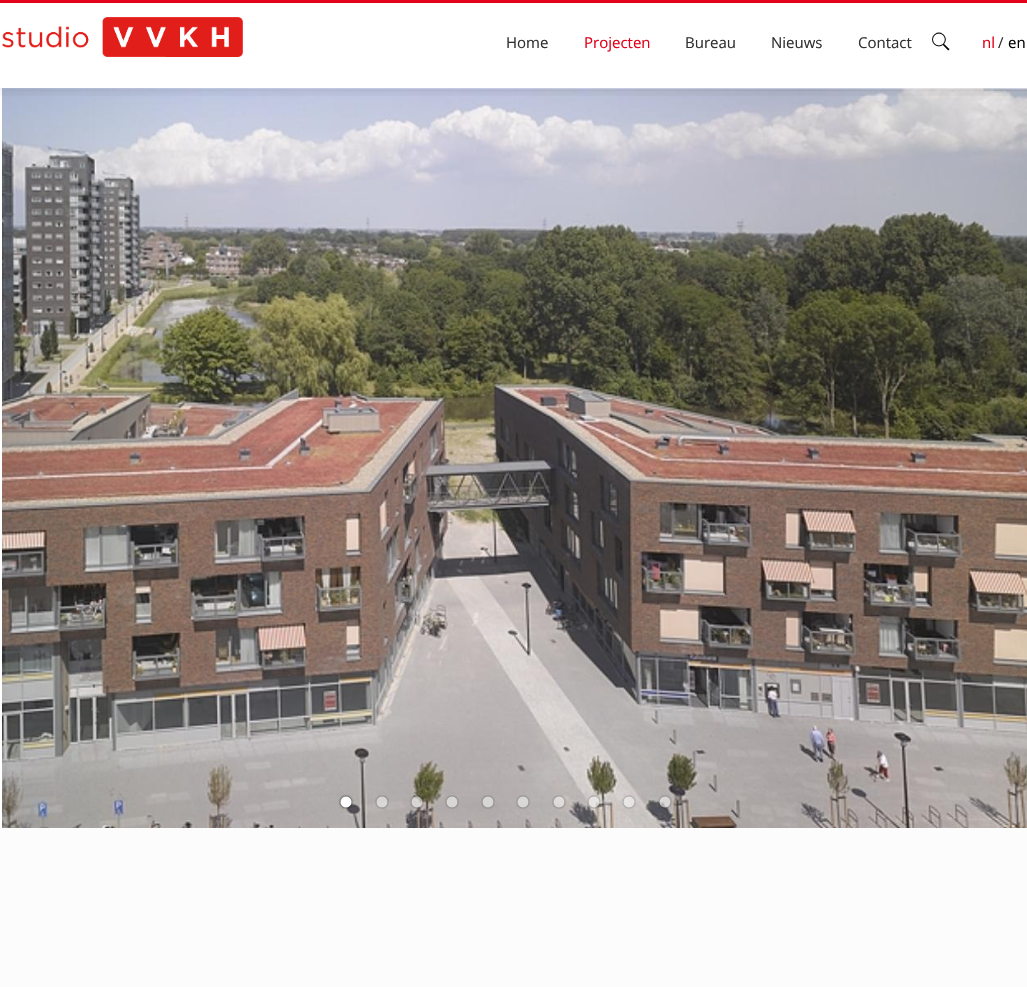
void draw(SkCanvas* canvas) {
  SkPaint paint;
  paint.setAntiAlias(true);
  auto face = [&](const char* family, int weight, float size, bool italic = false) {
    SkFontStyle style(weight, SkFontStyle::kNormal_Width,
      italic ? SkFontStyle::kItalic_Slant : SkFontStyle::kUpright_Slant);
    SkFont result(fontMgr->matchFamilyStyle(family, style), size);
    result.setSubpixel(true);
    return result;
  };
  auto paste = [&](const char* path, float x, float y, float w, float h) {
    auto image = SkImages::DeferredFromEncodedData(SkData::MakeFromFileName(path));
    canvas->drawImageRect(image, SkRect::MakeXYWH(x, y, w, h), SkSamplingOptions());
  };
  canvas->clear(0xffffffff);
  paint.setColor(0xffe2001a);
  canvas->drawRect(SkRect::MakeXYWH(0, 0, 1027, 3), paint);
  paste("img/1.png", 2, 17, 241, 40);
  paste("img/2.png", 932, 32, 18, 19);
  paste("img/4.png", 2, 88, 1025, 740);
  paste("img/3.png", 0, 88, 1027, 8);
  paste("img/5.png", 338, 794, 16, 16);
  paste("img/6.png", 375, 795, 14, 14);
  paste("img/7.png", 410, 795, 14, 14);
  paste("img/8.png", 445, 795, 14, 14);
  paste("img/9.png", 481, 795, 14, 14);
  paste("img/10.png", 516, 795, 14, 14);
  paste("img/11.png", 552, 795, 14, 14);
  paste("img/12.png", 587, 795, 14, 14);
  paste("img/13.png", 622, 795, 14, 14);
  paste("img/14.png", 658, 795, 14, 14);
  paint.setColor(0xfffcfcfc);
  canvas->drawRect(SkRect::MakeXYWH(0, 828, 1027, 159), paint);
  auto f0 = face("Open Sans", 400, 15);
  paint.setColor(0xff303030);
  canvas->drawString("Home", 506, 48, f0, paint);
  paint.setColor(0xffe2001a);
  canvas->drawString("Projecten", 584, 48, f0, paint);
  paint.setColor(0xff303030);
  {
    const struct { const char* s; float x, y; } items[] = {
      {"Bureau", 685, 48},
      {"Nieuws", 771, 48},
      {"Contact", 858, 48},
    };
    for (auto [s, x, y] : items) {
      canvas->drawString(s, x, y, f0, paint);
    }
  }
  paint.setColor(0xffe2001a);
  canvas->drawString("nl", 982, 48, f0, paint);
  paint.setColor(0xff303030);
  canvas->drawString("/", 998, 48, f0, paint);
  paint.setColor(0xff000000);
  canvas->drawString("en", 1008, 48, f0, paint);
}
